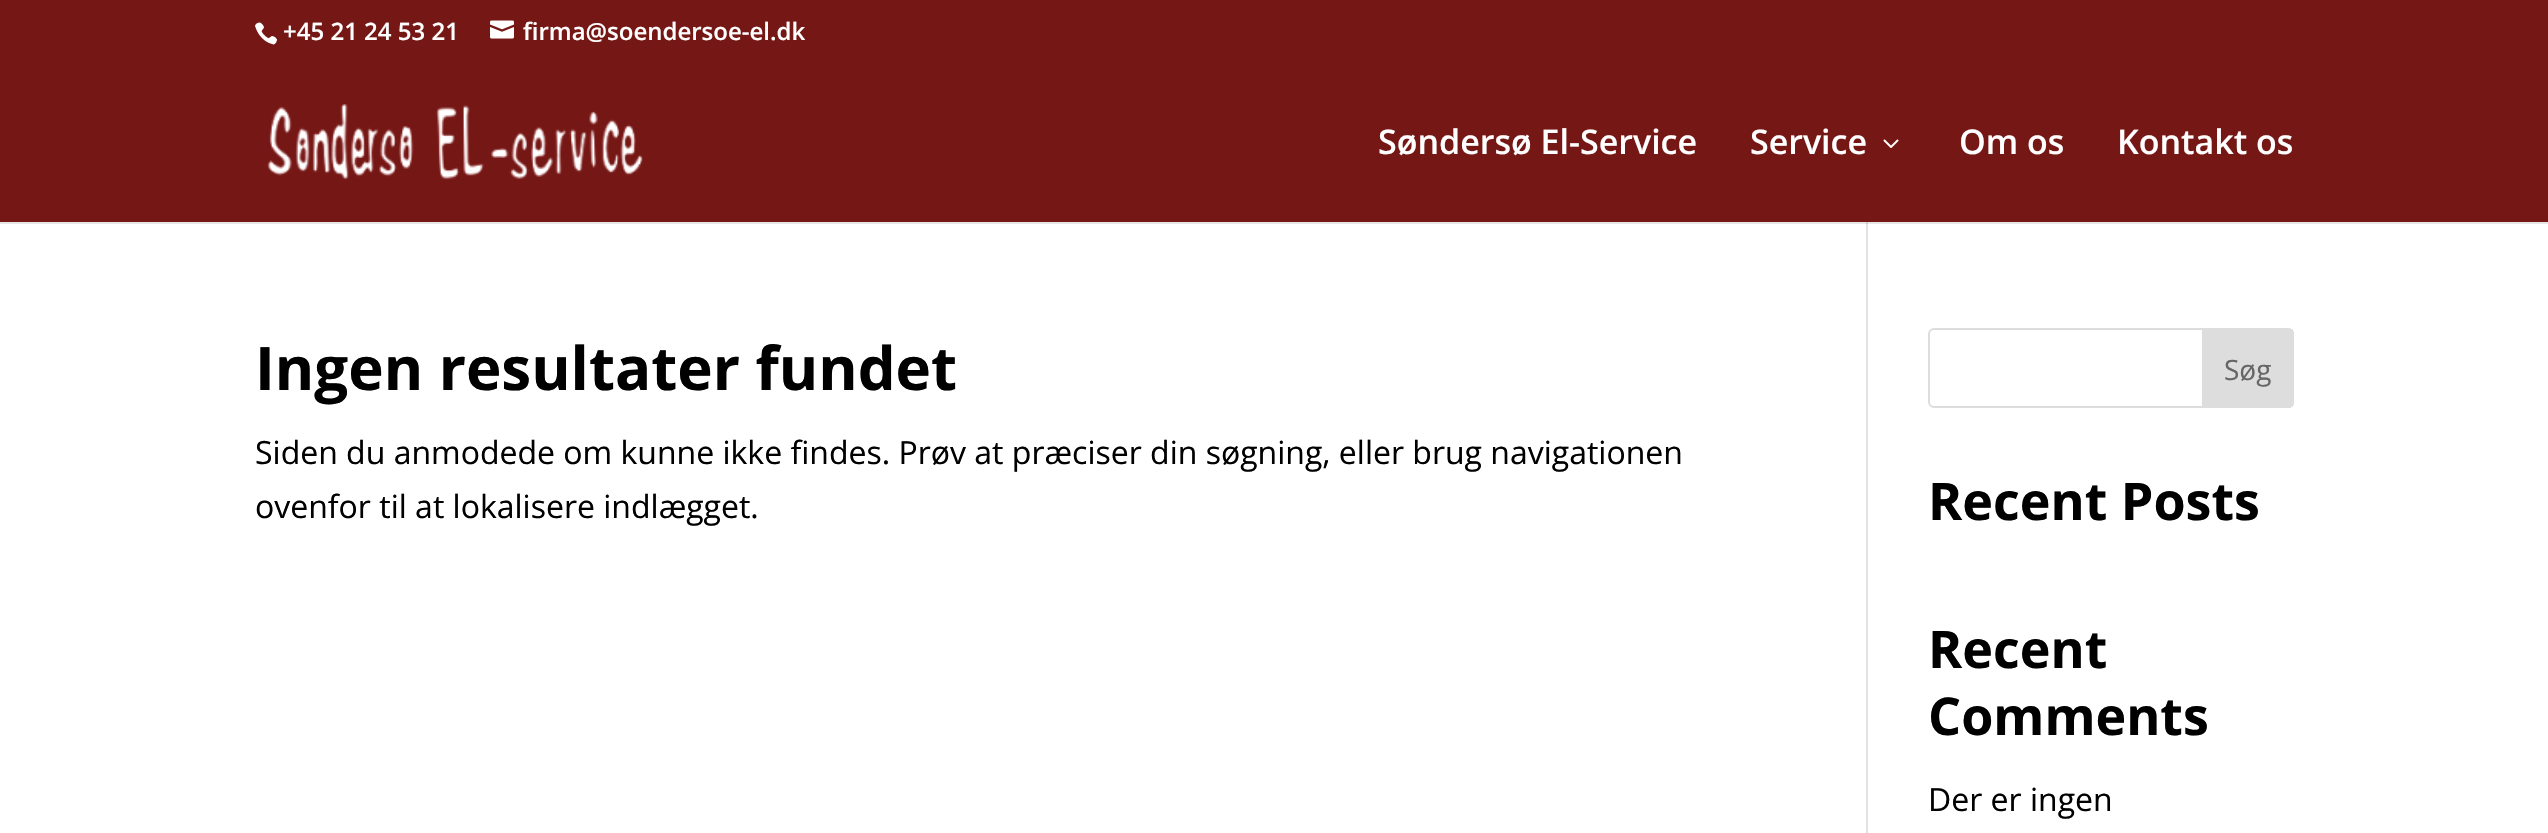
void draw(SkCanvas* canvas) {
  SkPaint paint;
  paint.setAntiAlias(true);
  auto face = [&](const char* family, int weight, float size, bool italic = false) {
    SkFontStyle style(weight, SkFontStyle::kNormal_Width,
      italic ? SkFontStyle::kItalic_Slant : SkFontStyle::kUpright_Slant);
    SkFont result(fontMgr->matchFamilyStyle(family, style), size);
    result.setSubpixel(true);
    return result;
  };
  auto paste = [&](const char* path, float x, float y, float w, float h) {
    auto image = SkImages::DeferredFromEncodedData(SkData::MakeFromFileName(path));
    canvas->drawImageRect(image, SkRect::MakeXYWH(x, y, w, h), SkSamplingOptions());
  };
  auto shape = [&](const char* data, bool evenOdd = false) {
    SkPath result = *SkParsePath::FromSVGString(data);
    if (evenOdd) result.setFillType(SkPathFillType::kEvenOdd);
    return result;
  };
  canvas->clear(0xffffffff);
  paint.setColor(0xffe6e6e6);
  canvas->drawRect(SkRect::MakeXYWH(0, 222, 2548, 2), paint);
  paint.setColor(0xff751815);
  canvas->drawRect(SkRect::MakeXYWH(0, 0, 2548, 222), paint);
  paste("img/1.png", 255, 22, 22, 23);
  paste("img/2.png", 490, 20, 24, 19);
  paste("img/3.png", 264, 104, 379, 82);
  paste("img/4.png", 1883, 139, 16, 9);
  paint.setColor(0xffe2e2e2);
  canvas->drawRect(SkRect::MakeXYWH(1866, 224, 2, 609), paint);
  paint.setColor(0xffcbcbcb);
  canvas->drawRect(SkRect::MakeXYWH(1866, 222, 2, 2), paint);
  paint.setStroke(true);
  paint.setStrokeWidth(2);
  paint.setColor(0xffdddddd);
  canvas->drawRoundRect(SkRect::MakeXYWH(1929, 329, 364, 78), 5, 5, paint);
  paint.setStroke(false);
  canvas->drawPath(shape("M2203 329H2288C2291 329 2293 331 2293 334V402C2293 405 2291 407 2288 407H2203Z"), paint);
  paint.setStroke(true);
  canvas->drawPath(shape("M2203 329H2288C2291 329 2293 331 2293 334V402C2293 405 2291 407 2288 407H2203Z"), paint);
  auto f0 = face("Open Sans", 600, 24);
  paint.setStroke(false);
  paint.setColor(0xffffffff);
  canvas->drawString("+45 21 24 53 21", 283, 40, f0, paint);
  canvas->drawString("firma@soendersoe-el.dk", 523, 40, f0, paint);
  auto f1 = face("Open Sans", 600, 34);
  {
    const struct { const char* s; float x, y; } items[] = {
      {"Søndersø El-Service", 1378, 154},
      {"Service", 1750, 154},
      {"Om os", 1959, 154},
      {"Kontakt os", 2117, 154},
    };
    for (auto [s, x, y] : items) {
      canvas->drawString(s, x, y, f1, paint);
    }
  }
  auto f2 = face("Open Sans", 700, 60);
  paint.setColor(0xff000000);
  canvas->drawString("Ingen resultater fundet", 255, 390, f2, paint);
  auto f3 = face("Open Sans", 400, 32);
  canvas->drawString("Siden du anmodede om kunne ikke findes. Prøv at præciser din søgning, eller brug navigationen", 255, 464, f3, paint);
  canvas->drawString("ovenfor til at lokalisere indlægget.", 255, 518, f3, paint);
  auto f4 = face("Open Sans", 400, 28);
  paint.setColor(0xff666666);
  canvas->drawString("Søg", 2224, 380, f4, paint);
  auto f5 = face("Open Sans", 700, 52);
  paint.setColor(0xff000000);
  {
    const struct { const char* s; float x, y; } items[] = {
      {"Recent Posts", 1928, 520},
      {"Recent", 1928, 668},
      {"Comments", 1928, 735},
    };
    for (auto [s, x, y] : items) {
      canvas->drawString(s, x, y, f5, paint);
    }
  }
  canvas->drawString("Der er ingen", 1928, 811, f3, paint);
}
